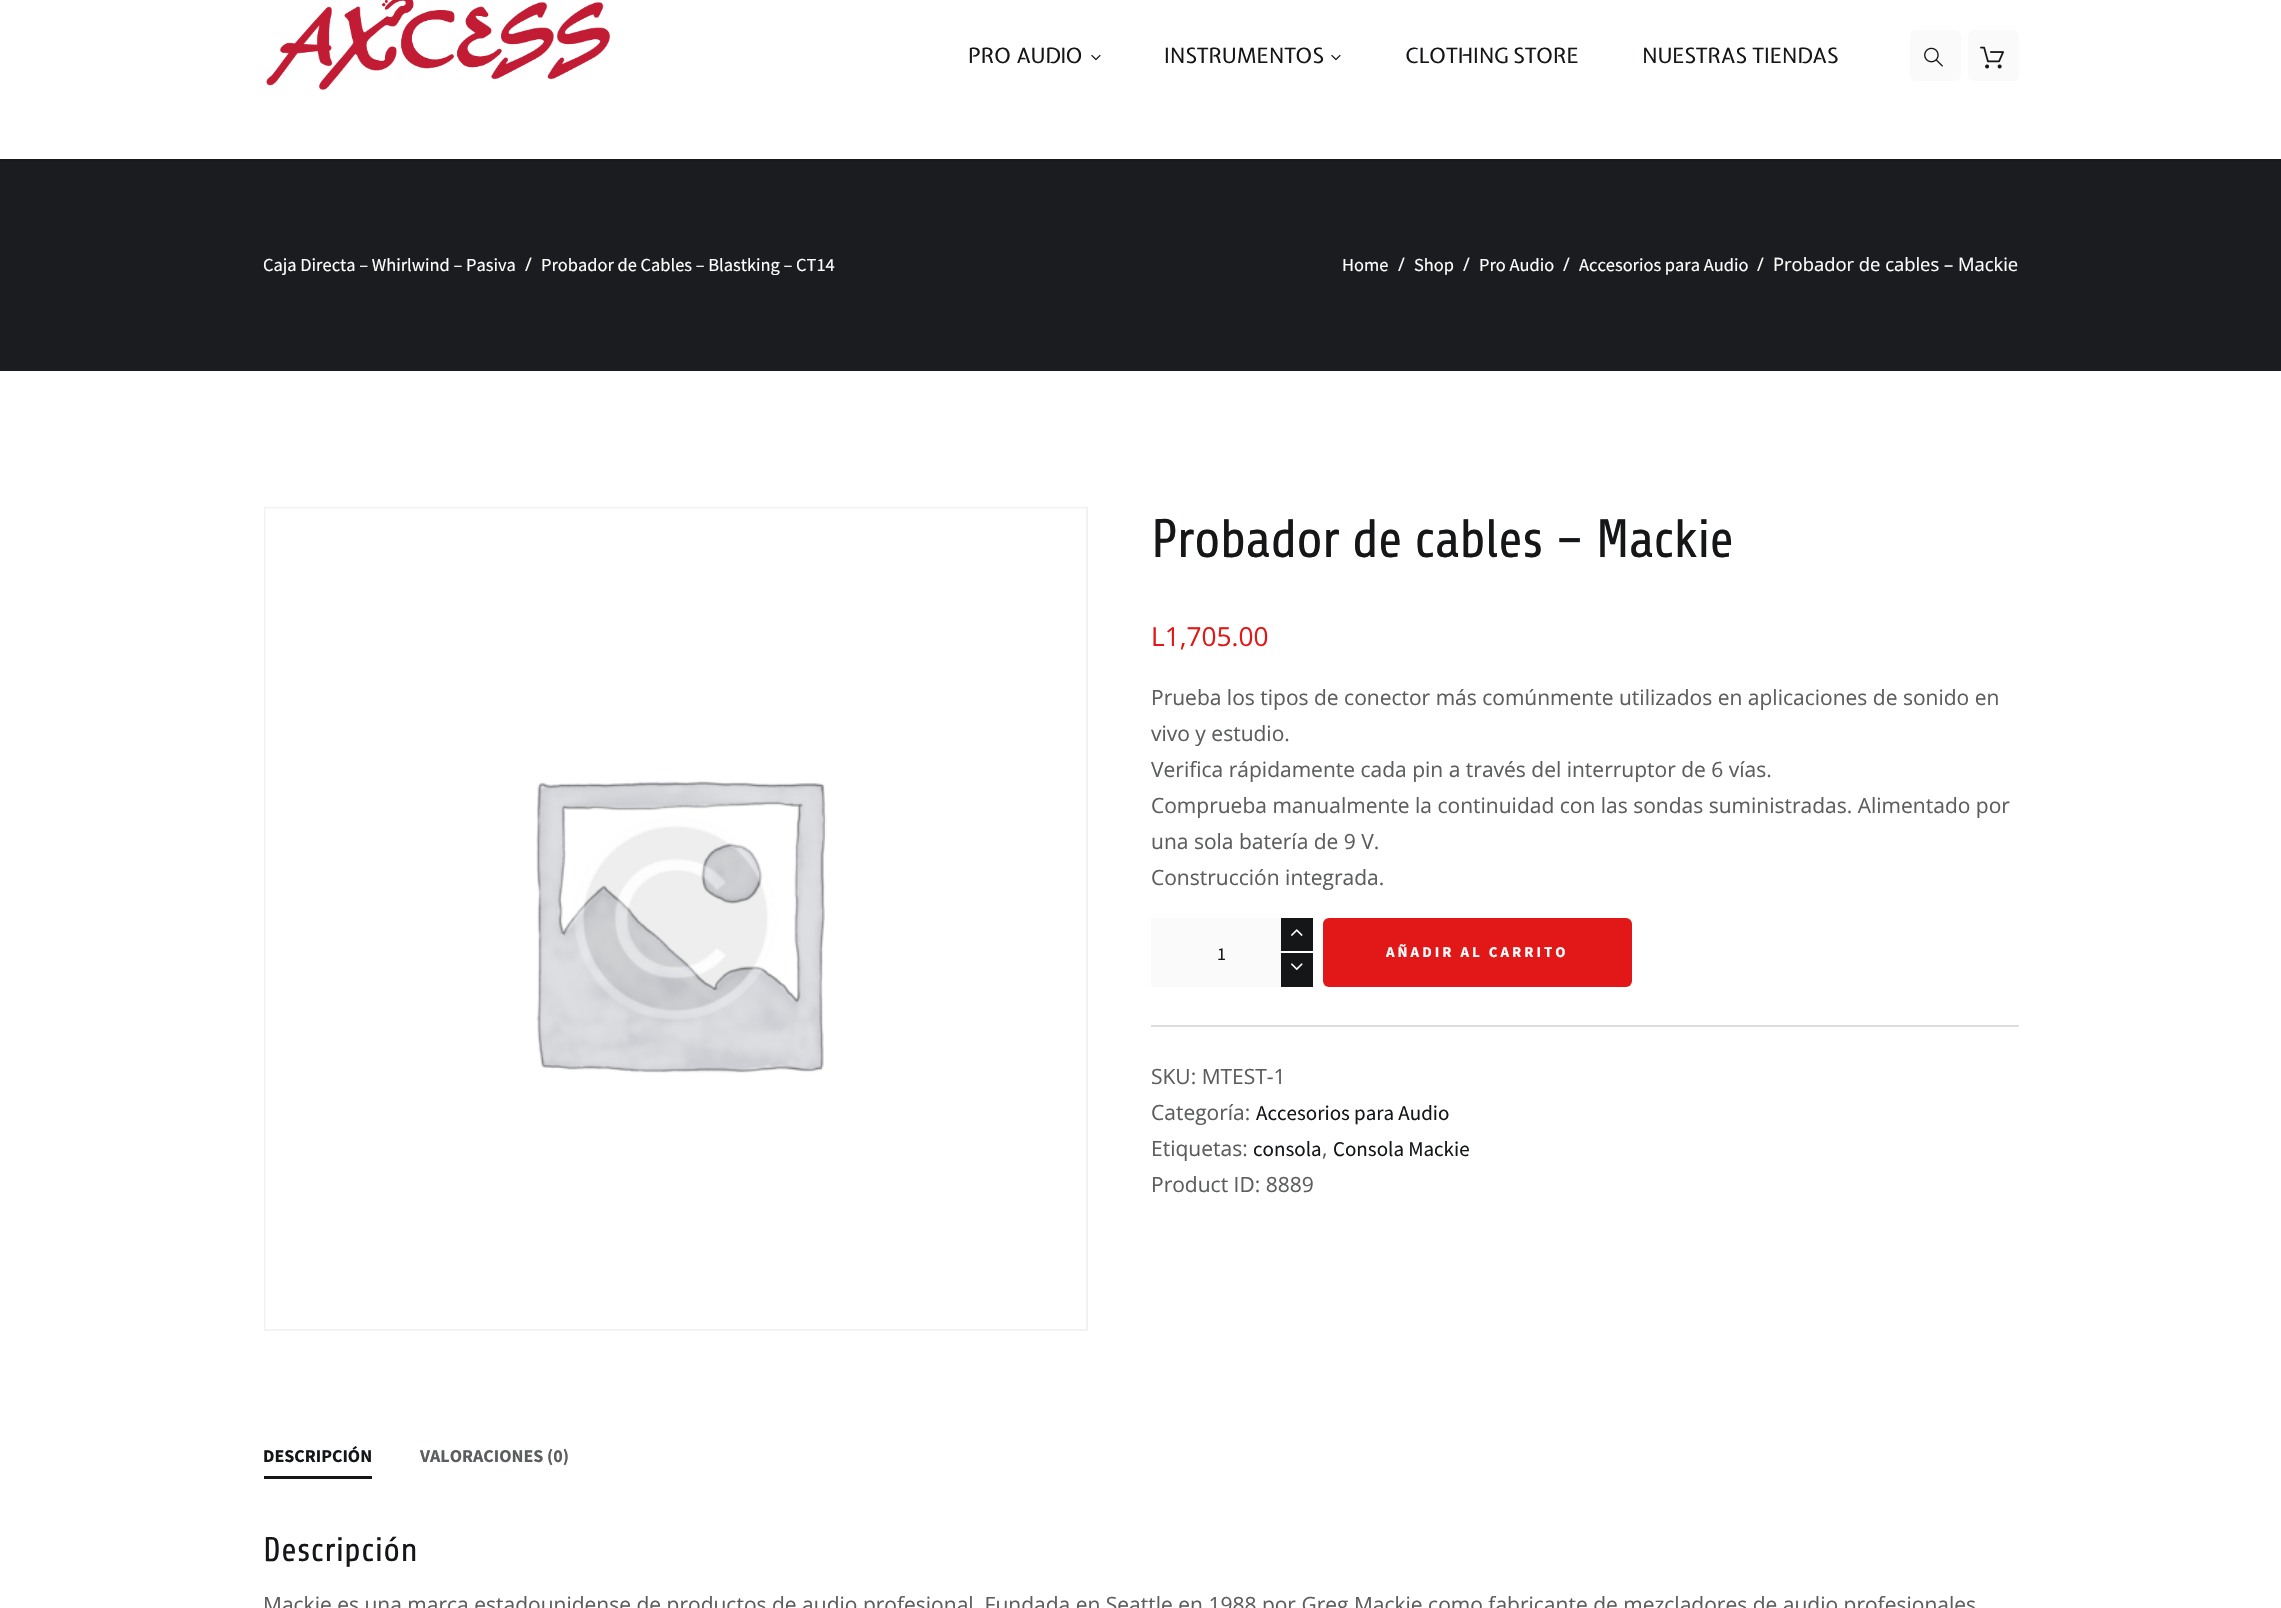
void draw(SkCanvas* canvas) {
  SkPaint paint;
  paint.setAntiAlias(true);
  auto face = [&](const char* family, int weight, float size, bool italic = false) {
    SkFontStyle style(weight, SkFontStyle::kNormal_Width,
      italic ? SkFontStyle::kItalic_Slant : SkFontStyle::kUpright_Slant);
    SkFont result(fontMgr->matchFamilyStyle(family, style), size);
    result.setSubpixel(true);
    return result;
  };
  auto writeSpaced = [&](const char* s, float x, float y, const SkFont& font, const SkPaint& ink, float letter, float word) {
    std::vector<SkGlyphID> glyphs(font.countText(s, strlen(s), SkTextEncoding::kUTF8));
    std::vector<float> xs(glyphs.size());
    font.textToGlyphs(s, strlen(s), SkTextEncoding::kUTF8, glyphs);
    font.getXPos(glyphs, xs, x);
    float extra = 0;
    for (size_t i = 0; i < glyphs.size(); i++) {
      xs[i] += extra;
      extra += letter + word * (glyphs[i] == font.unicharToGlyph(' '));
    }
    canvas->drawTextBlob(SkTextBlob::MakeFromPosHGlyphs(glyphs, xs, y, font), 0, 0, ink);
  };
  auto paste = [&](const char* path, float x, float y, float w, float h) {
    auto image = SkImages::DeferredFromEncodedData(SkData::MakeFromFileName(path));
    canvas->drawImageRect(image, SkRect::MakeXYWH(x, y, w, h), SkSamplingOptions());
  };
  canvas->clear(0xffffffff);
  paste("img/1.png", 266, 0, 344, 90);
  paste("img/2.png", 1091, 54, 10, 7);
  paste("img/2.png", 1331, 54, 10, 7);
  paint.setColor(0xfffafafa);
  canvas->drawRoundRect(SkRect::MakeXYWH(1910, 30, 51, 51), 6, 6, paint);
  paste("img/3.png", 1924, 47, 19, 20);
  canvas->drawRoundRect(SkRect::MakeXYWH(1968, 30, 51, 51), 6, 6, paint);
  paste("img/4.png", 1980, 46, 24, 23);
  paint.setColor(0xff1a1c1f);
  canvas->drawRect(SkRect::MakeXYWH(0, 161, 2281, 210), paint);
  paint.setColor(0xff17191c);
  canvas->drawRect(SkRect::MakeXYWH(0, 159, 2281, 2), paint);
  paint.setStroke(true);
  paint.setStrokeWidth(2);
  paint.setColor(0xfff2f2f2);
  canvas->drawRect(SkRect::MakeXYWH(265, 508, 822, 822), paint);
  paste("img/5.png", 265, 508, 821, 821);
  paint.setStroke(false);
  paint.setColor(0xffdddddd);
  canvas->drawRect(SkRect::MakeXYWH(1151, 1025, 868, 2), paint);
  paint.setColor(0xff141618);
  canvas->drawRect(SkRect::MakeXYWH(1281, 918, 32, 33), paint);
  paste("img/6.png", 1291, 929, 12, 7);
  paint.setColor(0xfffafafa);
  canvas->drawRect(SkRect::MakeXYWH(1151, 918, 130, 69), paint);
  paint.setColor(0xff141618);
  canvas->drawRect(SkRect::MakeXYWH(1281, 953, 32, 34), paint);
  paste("img/7.png", 1291, 963, 12, 8);
  paint.setColor(0xffe21818);
  canvas->drawRoundRect(SkRect::MakeXYWH(1323, 918, 309, 69), 6, 6, paint);
  paint.setColor(0xff141618);
  canvas->drawRect(SkRect::MakeXYWH(264, 1476, 108, 3), paint);
  auto f0 = face("Expletus Sans", 400, 21);
  {
    const struct { const char* s; float x, y; } items[] = {
      {"PRO AUDIO", 968, 63},
      {"INSTRUMENTOS", 1164, 63},
      {"CLOTHING STORE", 1405, 63},
      {"NUESTRAS TIENDAS", 1642, 63},
    };
    for (auto [s, x, y] : items) {
      canvas->drawString(s, x, y, f0, paint);
    }
  }
  auto f1 = face("Source Sans Pro", 400, 18.4f);
  paint.setColor(0xffffffff);
  canvas->drawString("Caja Directa – Whirlwind – Pasiva", 263, 271, f1, paint);
  auto f2 = face("Open Sans", 400, 18.4f);
  canvas->drawString("/", 525, 271, f2, paint);
  canvas->drawString("Probador de Cables – Blastking – CT14", 541, 271, f1, paint);
  canvas->drawString("Home", 1342, 271, f1, paint);
  canvas->drawString("/", 1398, 271, f2, paint);
  canvas->drawString("Shop", 1414, 271, f1, paint);
  canvas->drawString("/", 1463, 271, f2, paint);
  canvas->drawString("Pro Audio", 1479, 271, f1, paint);
  canvas->drawString("/", 1563, 271, f2, paint);
  canvas->drawString("Accesorios para Audio", 1579, 271, f1, paint);
  canvas->drawString("/", 1757, 271, f2, paint);
  canvas->drawString("Probador de cables – Mackie", 1773, 271, f2, paint);
  auto f3 = face("Share", 400, 54);
  paint.setColor(0xff141618);
  writeSpaced("Probador de cables – Mackie", 1151, 557, f3, paint, -1.35f, 0);
  auto f4 = face("Open Sans", 400, 26.25f);
  paint.setColor(0xffe21818);
  canvas->drawString("L1,705.00", 1151, 646, f4, paint);
  auto f5 = face("Open Sans", 400, 21);
  paint.setColor(0xff5c5d5e);
  {
    const struct { const char* s; float x, y; } items[] = {
      {"Prueba los tipos de conector más comúnmente utilizados en aplicaciones de sonido en", 1151, 705},
      {"vivo y estudio.", 1151, 741},
      {"Verifica rápidamente cada pin a través del interruptor de 6 vías.", 1151, 777},
      {"Comprueba manualmente la continuidad con las sondas suministradas. Alimentado por", 1151, 813},
      {"una sola batería de 9 V.", 1151, 849},
      {"Construcción integrada.", 1151, 885},
    };
    for (auto [s, x, y] : items) {
      canvas->drawString(s, x, y, f5, paint);
    }
  }
  auto f6 = face("Source Sans Pro", 400, 18);
  paint.setColor(0xff141618);
  canvas->drawString("1", 1217, 960, f6, paint);
  auto f7 = face("Source Sans Pro", 700, 15);
  paint.setColor(0xffffffff);
  writeSpaced("AÑADIR AL CARRITO", 1386, 957, f7, paint, 3, 0);
  paint.setColor(0xff5c5d5e);
  canvas->drawString("SKU: MTEST-1", 1151, 1084, f5, paint);
  canvas->drawString("Categoría:", 1151, 1120, f5, paint);
  auto f8 = face("Source Sans Pro", 400, 21);
  paint.setColor(0xff141618);
  canvas->drawString("Accesorios para Audio", 1256, 1120, f8, paint);
  paint.setColor(0xff5c5d5e);
  canvas->drawString("Etiquetas:", 1151, 1156, f5, paint);
  paint.setColor(0xff141618);
  canvas->drawString("consola", 1253, 1156, f8, paint);
  paint.setColor(0xff5c5d5e);
  canvas->drawString(",", 1322, 1156, f5, paint);
  paint.setColor(0xff141618);
  canvas->drawString("Consola Mackie", 1333, 1156, f8, paint);
  paint.setColor(0xff5c5d5e);
  canvas->drawString("Product ID: 8889", 1151, 1192, f5, paint);
  auto f9 = face("Source Sans Pro", 700, 18);
  paint.setColor(0xff141618);
  canvas->drawString("DESCRIPCIÓN", 263, 1462, f9, paint);
  paint.setColor(0xff5c5d5e);
  canvas->drawString("VALORACIONES (0)", 420, 1462, f9, paint);
  auto f10 = face("Share", 400, 34);
  paint.setColor(0xff141618);
  canvas->drawString("Descripción", 263, 1561, f10, paint);
  paint.setColor(0xff5c5d5e);
  canvas->drawString("Mackie es una marca estadounidense de productos de audio profesional. Fundada en Seattle en 1988 por Greg Mackie como fabricante de mezcladores de audio profesionales", 263, 1612, f5, paint);
}
